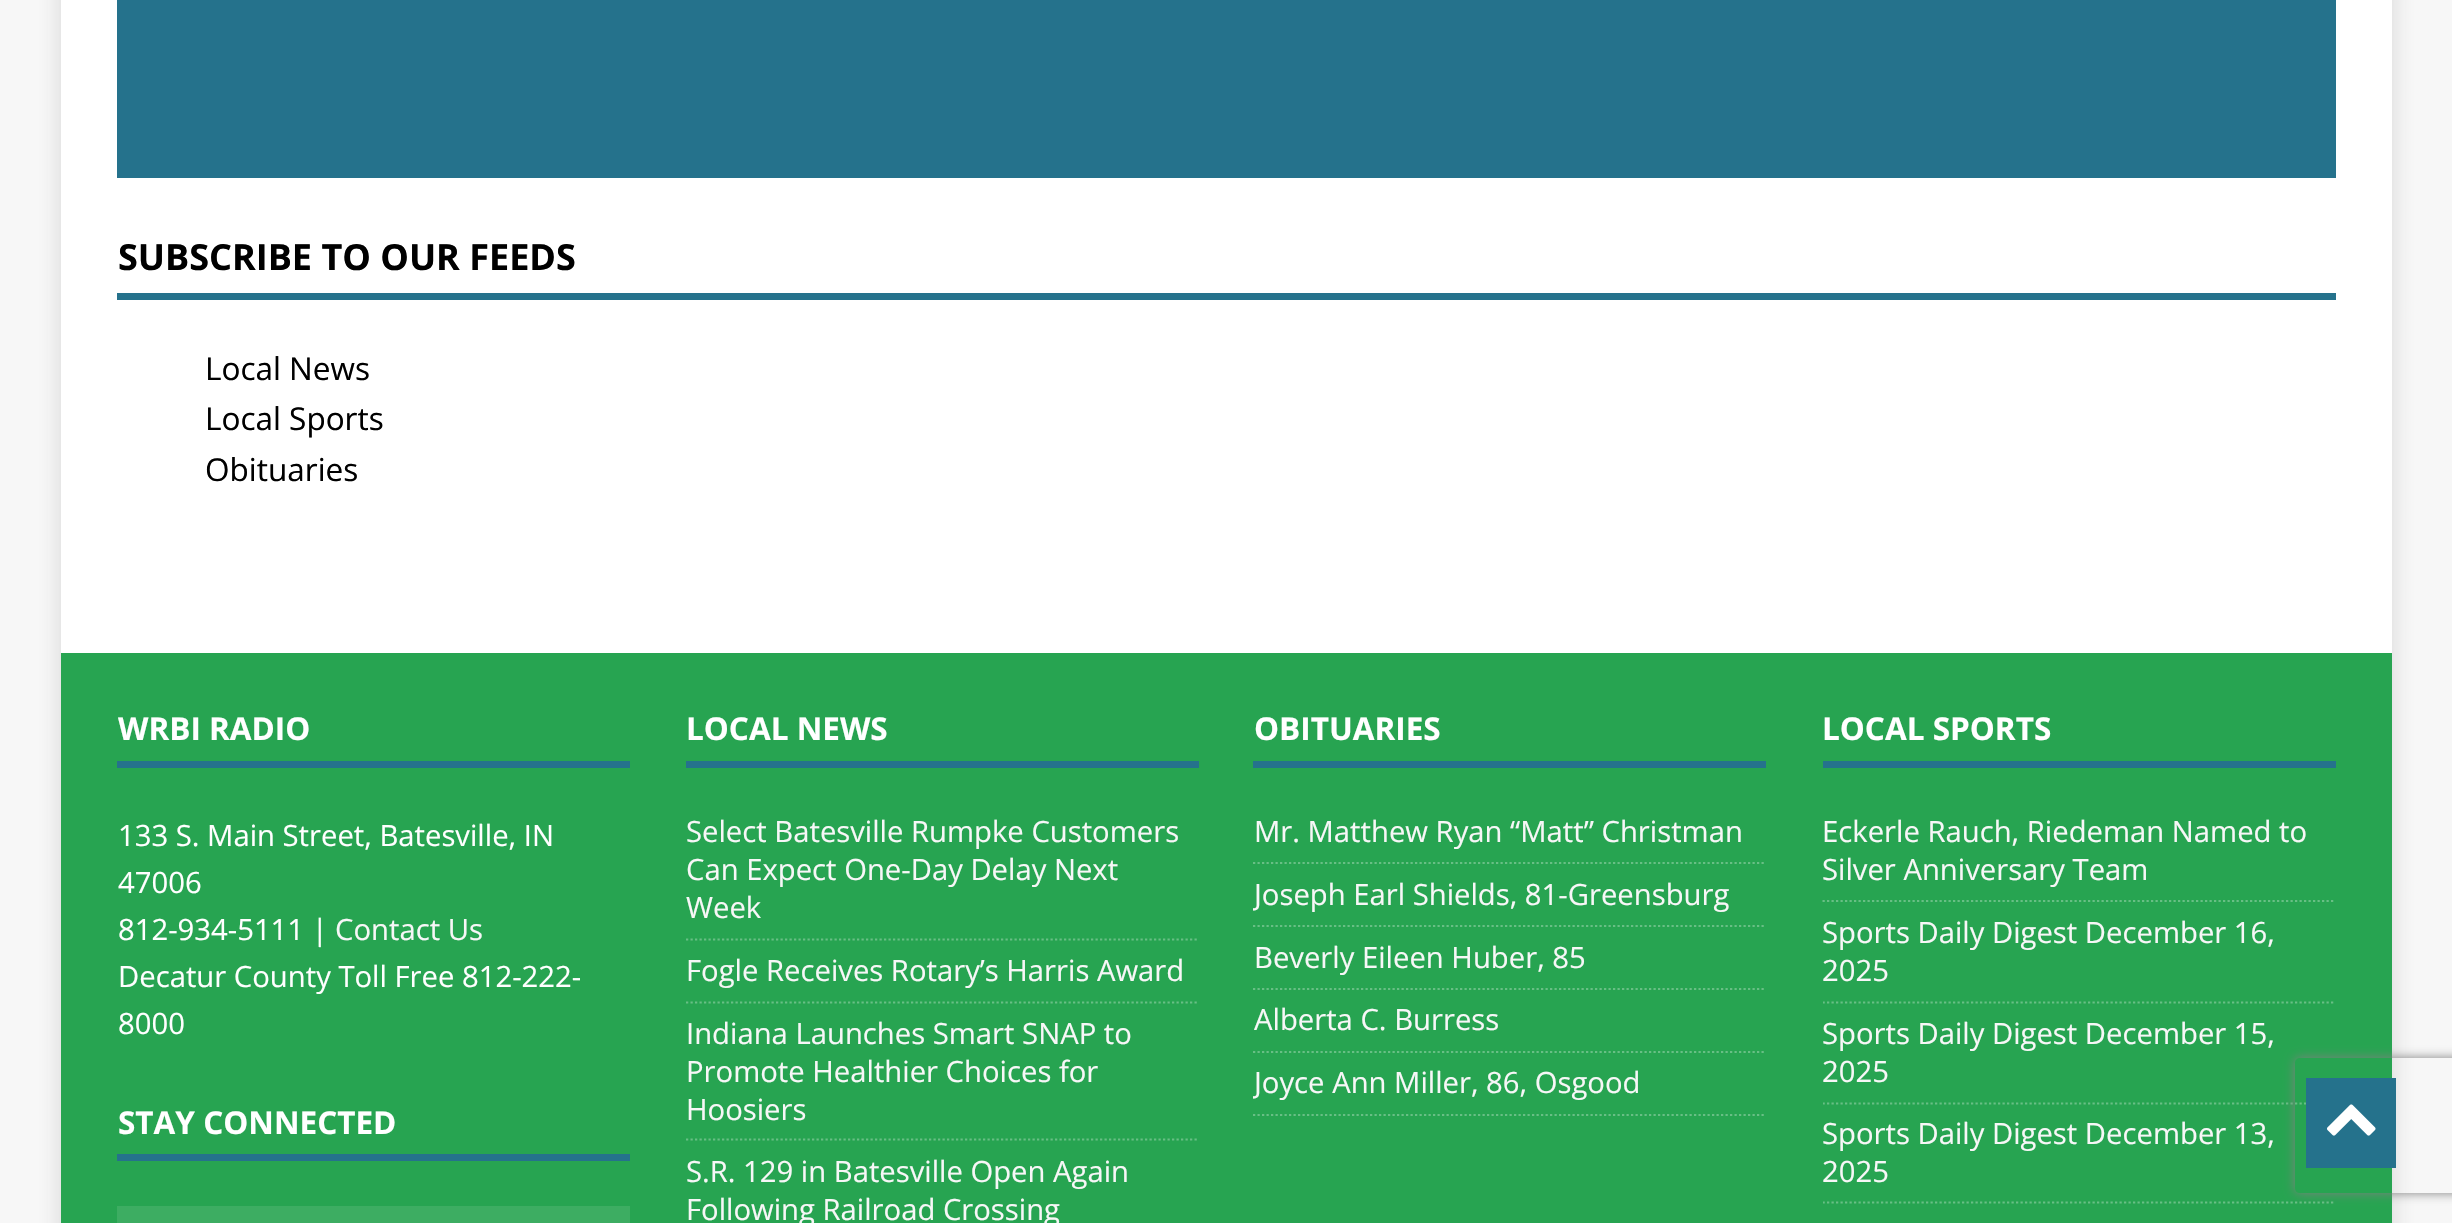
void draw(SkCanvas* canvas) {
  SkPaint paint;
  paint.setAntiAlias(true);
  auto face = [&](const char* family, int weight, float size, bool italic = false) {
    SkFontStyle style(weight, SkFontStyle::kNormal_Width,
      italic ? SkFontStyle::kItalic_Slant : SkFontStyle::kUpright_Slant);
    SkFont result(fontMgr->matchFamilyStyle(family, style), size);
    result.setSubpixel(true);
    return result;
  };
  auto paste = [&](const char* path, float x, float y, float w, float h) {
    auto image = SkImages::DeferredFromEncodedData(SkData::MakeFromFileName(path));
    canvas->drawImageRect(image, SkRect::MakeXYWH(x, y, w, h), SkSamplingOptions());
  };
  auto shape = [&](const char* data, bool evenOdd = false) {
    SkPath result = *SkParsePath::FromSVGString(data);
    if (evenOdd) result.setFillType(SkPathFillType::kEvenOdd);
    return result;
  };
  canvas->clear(0xfff7f7f7);
  paint.setColor(0x2b323232);
  paint.setMaskFilter(SkMaskFilter::MakeBlur(kNormal_SkBlurStyle, 11));
  canvas->drawRect(SkRect::MakeXYWH(61, -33, 2331, 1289), paint);
  paint.setMaskFilter(nullptr);
  {
    const struct { float x, y, w, h; SkColor color; } items[] = {
      {61, 0, 2331, 653, 0xffffffff},
      {117, 0, 2219, 178, 0xff25728c},
      {117, 293, 2219, 7, 0xff25728c},
      {61, 653, 2331, 570, 0xff27a451},
      {117, 761, 513, 7, 0xff25728c},
      {117, 1154, 513, 7, 0xff25728c},
      {117, 1206, 513, 17, 0xff3dad62},
      {686, 761, 513, 7, 0xff25728c},
    };
    for (auto [x, y, w, h, color] : items) {
      paint.setColor(color);
      canvas->drawRect(SkRect::MakeXYWH(x, y, w, h), paint);
    }
  }
  paint.setStroke(true);
  paint.setStrokeWidth(2.2f);
  paint.setColor(0xff68bf85);
  paint.setPathEffect(SkDashPathEffect::Make({{2.25f, 2.25f}}, 0));
  canvas->drawPath(shape("M686 939.5H1199"), paint);
  paint.setPathEffect(nullptr);
  paint.setPathEffect(SkDashPathEffect::Make({{2.25f, 2.25f}}, 0));
  canvas->drawPath(shape("M686 1002.5H1199"), paint);
  paint.setPathEffect(nullptr);
  paint.setPathEffect(SkDashPathEffect::Make({{2.25f, 2.25f}}, 0));
  canvas->drawPath(shape("M686 1139.5H1199"), paint);
  paint.setPathEffect(nullptr);
  paint.setStroke(false);
  paint.setColor(0xff25728c);
  canvas->drawRect(SkRect::MakeXYWH(1253, 761, 513, 7), paint);
  paint.setStroke(true);
  paint.setColor(0xff68bf85);
  paint.setPathEffect(SkDashPathEffect::Make({{2.25f, 2.25f}}, 0));
  canvas->drawPath(shape("M1253 863H1766"), paint);
  paint.setPathEffect(nullptr);
  paint.setPathEffect(SkDashPathEffect::Make({{2.25f, 2.25f}}, 0));
  canvas->drawPath(shape("M1253 926H1766"), paint);
  paint.setPathEffect(nullptr);
  paint.setPathEffect(SkDashPathEffect::Make({{2.25f, 2.25f}}, 0));
  canvas->drawPath(shape("M1253 989H1766"), paint);
  paint.setPathEffect(nullptr);
  paint.setPathEffect(SkDashPathEffect::Make({{2.25f, 2.25f}}, 0));
  canvas->drawPath(shape("M1253 1052H1766"), paint);
  paint.setPathEffect(nullptr);
  canvas->save();
  canvas->clipRect(SkRect::MakeXYWH(1253, 709, 513, 407));
  paint.setPathEffect(SkDashPathEffect::Make({{2.25f, 2.25f}}, 0));
  canvas->drawPath(shape("M1253 1115H1766"), paint);
  paint.setPathEffect(nullptr);
  canvas->restore();
  paint.setStroke(false);
  paint.setColor(0xff25728c);
  canvas->drawRect(SkRect::MakeXYWH(1823, 761, 513, 7), paint);
  paint.setStroke(true);
  paint.setColor(0xff68bf85);
  paint.setPathEffect(SkDashPathEffect::Make({{2.25f, 2.25f}}, 0));
  canvas->drawPath(shape("M1822.5 901H2335.5"), paint);
  paint.setPathEffect(nullptr);
  canvas->save();
  canvas->clipRect(SkRect::MakeXYWH(1823, 709, 513, 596));
  paint.setPathEffect(SkDashPathEffect::Make({{2.25f, 2.25f}}, 0));
  canvas->drawPath(shape("M1822.5 1002.5H2335.5"), paint);
  paint.setPathEffect(nullptr);
  paint.setPathEffect(SkDashPathEffect::Make({{2.25f, 2.25f}}, 0));
  canvas->drawPath(shape("M1822.5 1103.5H2335.5"), paint);
  paint.setPathEffect(nullptr);
  paint.setPathEffect(SkDashPathEffect::Make({{2.25f, 2.25f}}, 0));
  canvas->drawPath(shape("M1822.5 1202.5H2335.5"), paint);
  paint.setPathEffect(nullptr);
  canvas->restore();
  canvas->save();
  canvas->clipPath(shape("M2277 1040H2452V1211H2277ZM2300 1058H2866C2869 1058 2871 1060 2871 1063V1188C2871 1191 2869 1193 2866 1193H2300C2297 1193 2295 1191 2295 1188V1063C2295 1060 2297 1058 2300 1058Z", true), true);
  paint.setStroke(false);
  paint.setColor(0xff808080);
  paint.setMaskFilter(SkMaskFilter::MakeBlur(kNormal_SkBlurStyle, 5.5f));
  canvas->drawRoundRect(SkRect::MakeXYWH(2295, 1058, 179, 135), 5, 5, paint);
  paint.setMaskFilter(nullptr);
  canvas->restore();
  paint.setColor(0xff25728c);
  canvas->drawRect(SkRect::MakeXYWH(2306, 1078, 90, 90), paint);
  paste("img/1.png", 2327, 1104, 49, 32);
  auto f0 = face("Open Sans", 700, 36);
  paint.setColor(0xff000000);
  canvas->drawString("SUBSCRIBE TO OUR FEEDS", 118, 270, f0, paint);
  auto f1 = face("Open Sans", 400, 31.5f);
  {
    const struct { const char* s; float x, y; } items[] = {
      {"Local News", 205, 380},
      {"Local Sports", 205, 430},
      {"Obituaries", 205, 481},
    };
    for (auto [s, x, y] : items) {
      canvas->drawString(s, x, y, f1, paint);
    }
  }
  auto f2 = face("Open Sans", 700, 31.5f);
  paint.setColor(0xffffffff);
  canvas->drawString("WRBI RADIO", 118, 740, f2, paint);
  auto f3 = face("Open Sans", 400, 29.25f);
  {
    const struct { const char* s; float x, y; } items[] = {
      {"133 S. Main Street, Batesville, IN", 118, 846},
      {"47006", 118, 893},
      {"812-934-5111 |", 118, 940},
    };
    for (auto [s, x, y] : items) {
      canvas->drawString(s, x, y, f3, paint);
    }
  }
  paint.setColor(0xfff7f7f7);
  canvas->drawString("Contact Us", 335, 940, f3, paint);
  paint.setColor(0xffffffff);
  canvas->drawString("Decatur County Toll Free 812-222-", 118, 987, f3, paint);
  canvas->drawString("8000", 118, 1034, f3, paint);
  canvas->drawString("STAY CONNECTED", 118, 1134, f2, paint);
  canvas->drawString("LOCAL NEWS", 686, 740, f2, paint);
  paint.setColor(0xfff7f7f7);
  {
    const struct { const char* s; float x, y; } items[] = {
      {"Select Batesville Rumpke Customers", 686, 842},
      {"Can Expect One-Day Delay Next", 686, 880},
      {"Week", 686, 918},
      {"Fogle Receives Rotary’s Harris Award", 686, 981},
      {"Indiana Launches Smart SNAP to", 686, 1044},
      {"Promote Healthier Choices for", 686, 1082},
      {"Hoosiers", 686, 1120},
      {"S.R. 129 in Batesville Open Again", 686, 1182},
      {"Following Railroad Crossing", 686, 1220},
    };
    for (auto [s, x, y] : items) {
      canvas->drawString(s, x, y, f3, paint);
    }
  }
  paint.setColor(0xffffffff);
  canvas->drawString("OBITUARIES", 1254, 740, f2, paint);
  paint.setColor(0xfff7f7f7);
  canvas->drawString("Mr. Matthew Ryan “Matt” Christman", 1254, 842, f3, paint);
  canvas->save();
  canvas->clipRect(SkRect::MakeXYWH(1253, 875, 513, 39));
  canvas->drawString("Joseph Earl Shields, 81-Greensburg", 1254, 905, f3, paint);
  canvas->restore();
  canvas->drawString("Beverly Eileen Huber, 85", 1254, 968, f3, paint);
  canvas->drawString("Alberta C. Burress", 1254, 1030, f3, paint);
  canvas->save();
  canvas->clipRect(SkRect::MakeXYWH(1253, 1064, 513, 39));
  canvas->drawString("Joyce Ann Miller, 86, Osgood", 1254, 1093, f3, paint);
  canvas->restore();
  paint.setColor(0xffffffff);
  canvas->drawString("LOCAL SPORTS", 1822, 740, f2, paint);
  paint.setColor(0xfff7f7f7);
  {
    const struct { const char* s; float x, y; } items[] = {
      {"Eckerle Rauch, Riedeman Named to", 1822, 842},
      {"Silver Anniversary Team", 1822, 880},
      {"Sports Daily Digest December 16,", 1822, 943},
      {"2025", 1822, 981},
      {"Sports Daily Digest December 15,", 1822, 1044},
      {"2025", 1822, 1082},
      {"Sports Daily Digest December 13,", 1822, 1144},
      {"2025", 1822, 1182},
    };
    for (auto [s, x, y] : items) {
      canvas->drawString(s, x, y, f3, paint);
    }
  }
}
